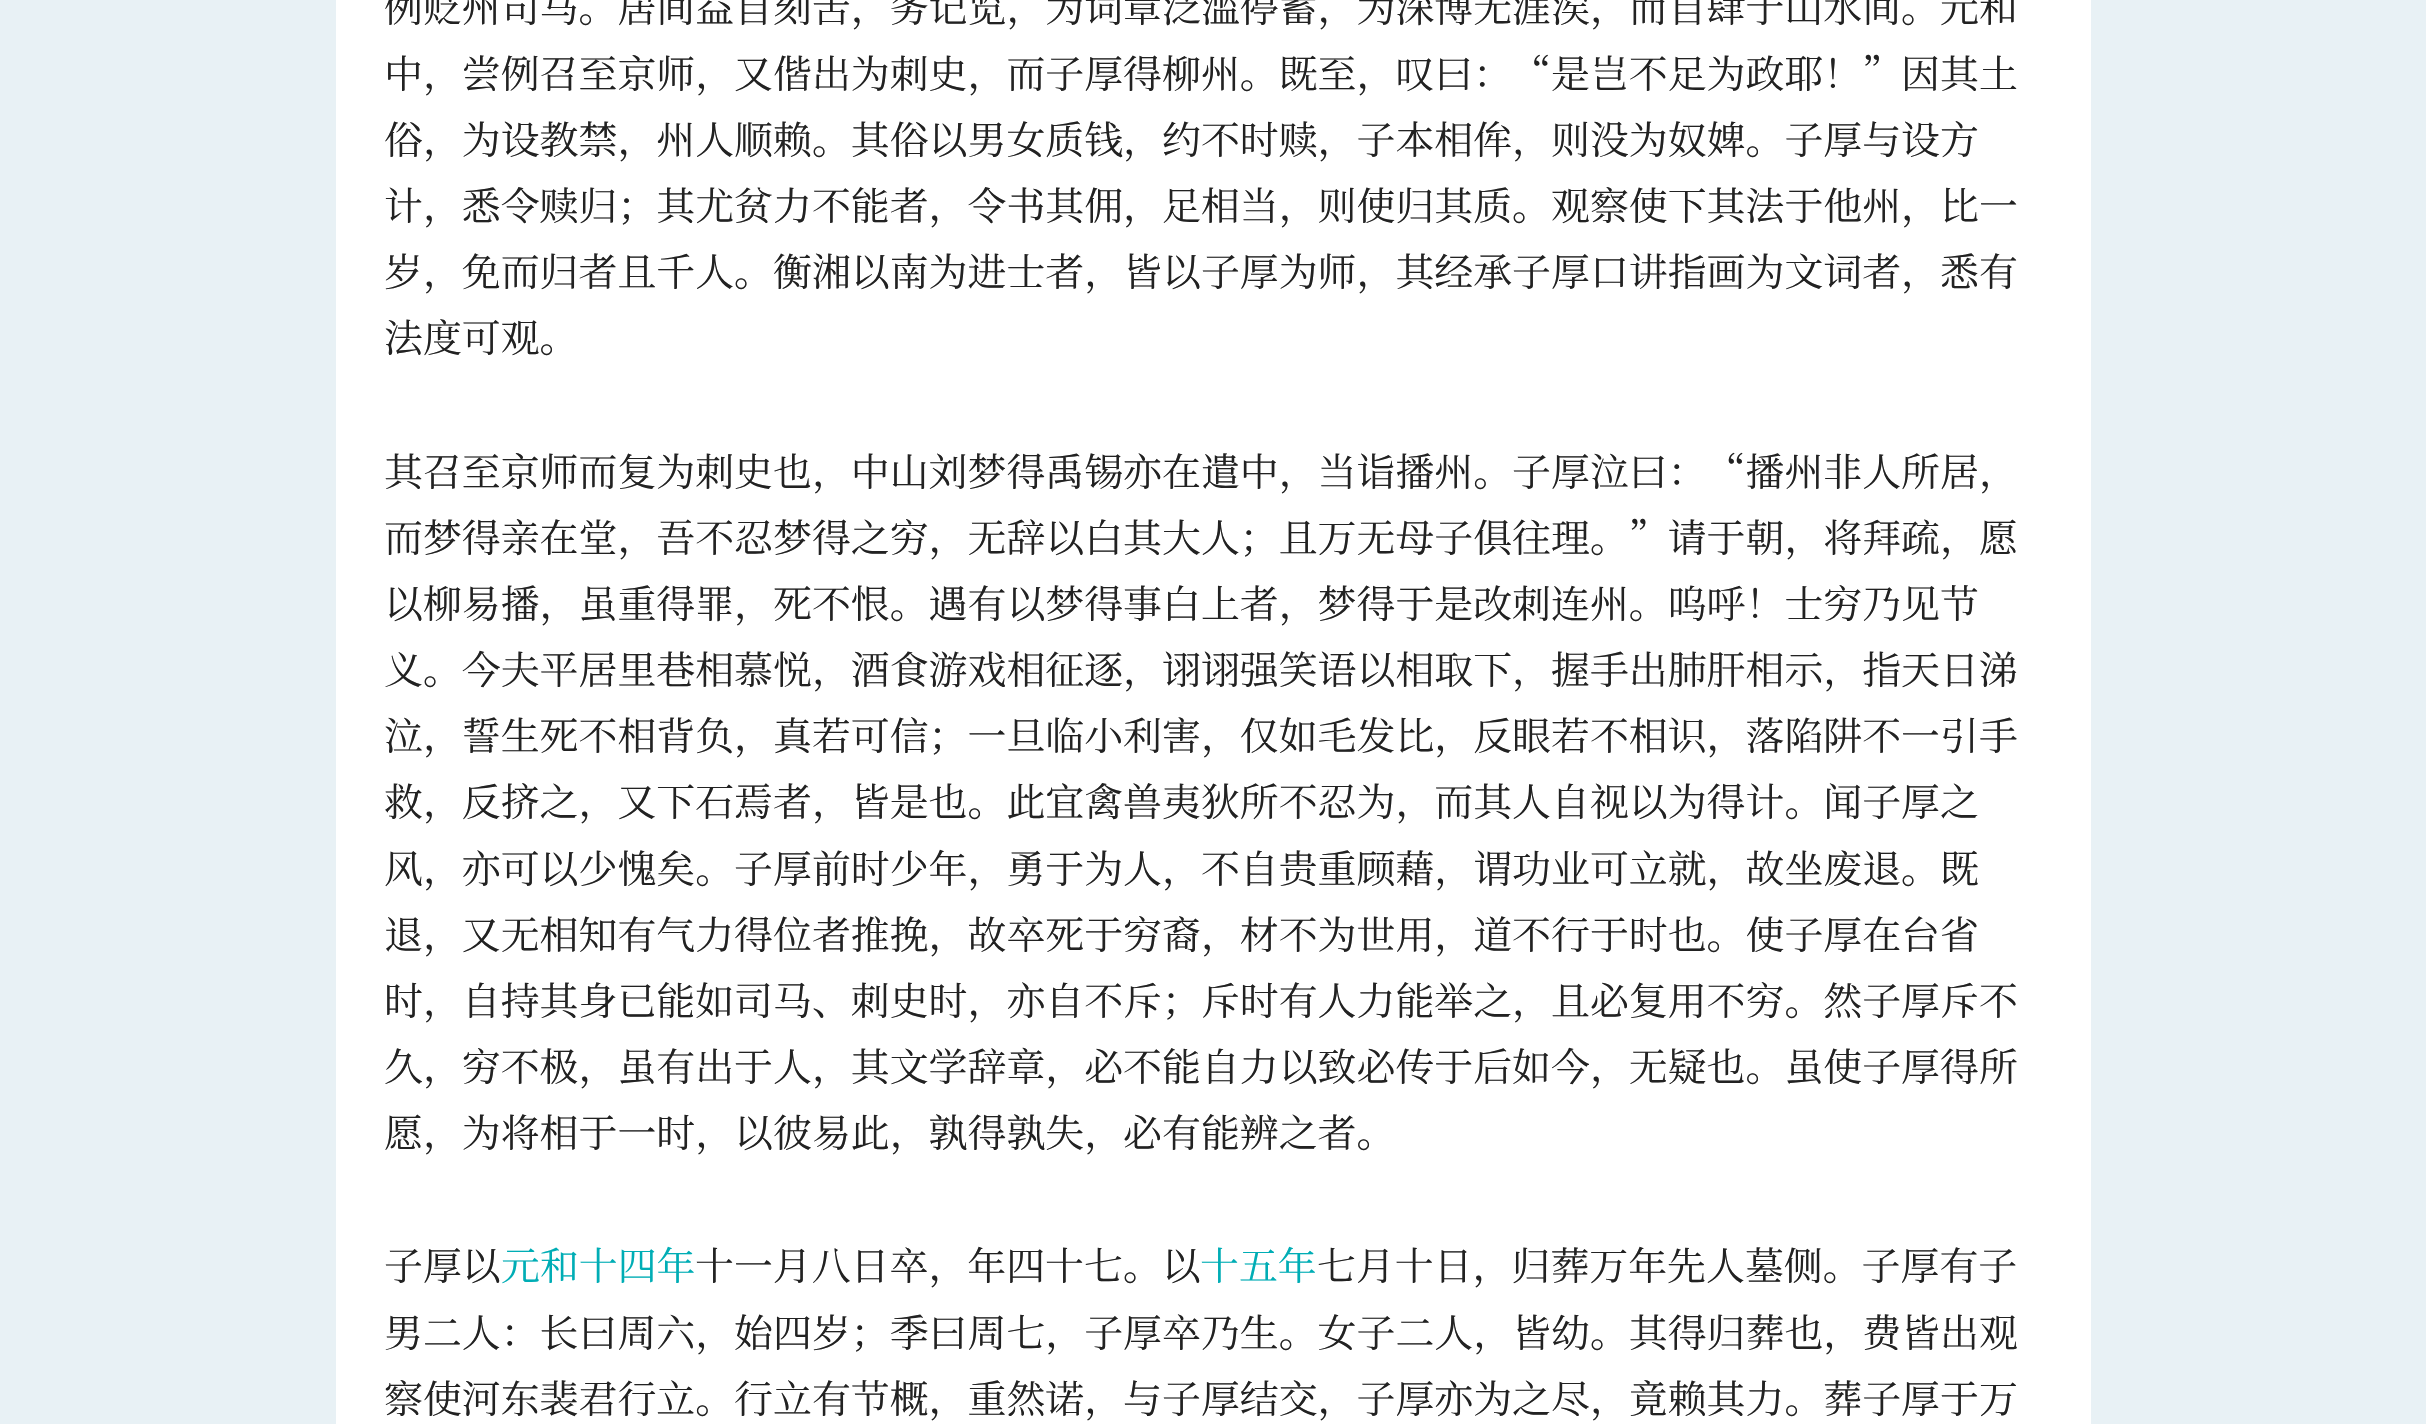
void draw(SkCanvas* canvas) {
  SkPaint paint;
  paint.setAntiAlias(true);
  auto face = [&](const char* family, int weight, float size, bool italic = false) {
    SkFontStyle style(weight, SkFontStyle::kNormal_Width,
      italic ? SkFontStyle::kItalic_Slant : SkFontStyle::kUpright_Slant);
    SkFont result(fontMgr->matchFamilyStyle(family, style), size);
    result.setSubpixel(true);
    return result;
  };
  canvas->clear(0xffe8f1f5);
  paint.setColor(0xffffffff);
  canvas->drawRect(SkRect::MakeXYWH(336, 0, 1755, 1424), paint);
  auto f0 = face("Noto Serif SC", 400, 38.9f);
  paint.setColor(0xff222222);
  {
    const struct { const char* s; float x, y; } items[] = {
      {"例贬州司马。居间益自刻苦，务记览，为词章泛滥停蓄，为深博无涯涘，而自肆于山水间。元和", 384, 22},
      {"中，尝例召至京师，又偕出为刺史，而子厚得柳州。既至，叹曰：“是岂不足为政耶！”因其土", 384, 88},
      {"俗，为设教禁，州人顺赖。其俗以男女质钱，约不时赎，子本相侔，则没为奴婢。子厚与设方", 384, 154},
      {"计，悉令赎归；其尤贫力不能者，令书其佣，足相当，则使归其质。观察使下其法于他州，比一", 384, 220},
      {"岁，免而归者且千人。衡湘以南为进士者，皆以子厚为师，其经承子厚口讲指画为文词者，悉有", 384, 286},
      {"法度可观。", 384, 352},
      {"其召至京师而复为刺史也，中山刘梦得禹锡亦在遣中，当诣播州。子厚泣曰：“播州非人所居，", 384, 486},
      {"而梦得亲在堂，吾不忍梦得之穷，无辞以白其大人；且万无母子俱往理。”请于朝，将拜疏，愿", 384, 552},
      {"以柳易播，虽重得罪，死不恨。遇有以梦得事白上者，梦得于是改刺连州。呜呼！士穷乃见节", 384, 618},
      {"义。今夫平居里巷相慕悦，酒食游戏相征逐，诩诩强笑语以相取下，握手出肺肝相示，指天日涕", 384, 684},
      {"泣，誓生死不相背负，真若可信；一旦临小利害，仅如毛发比，反眼若不相识，落陷阱不一引手", 384, 750},
      {"救，反挤之，又下石焉者，皆是也。此宜禽兽夷狄所不忍为，而其人自视以为得计。闻子厚之", 384, 816},
      {"风，亦可以少愧矣。子厚前时少年，勇于为人，不自贵重顾藉，谓功业可立就，故坐废退。既", 384, 883},
      {"退，又无相知有气力得位者推挽，故卒死于穷裔，材不为世用，道不行于时也。使子厚在台省", 384, 949},
      {"时，自持其身已能如司马、刺史时，亦自不斥；斥时有人力能举之，且必复用不穷。然子厚斥不", 384, 1015},
      {"久，穷不极，虽有出于人，其文学辞章，必不能自力以致必传于后如今，无疑也。虽使子厚得所", 384, 1081},
      {"愿，为将相于一时，以彼易此，孰得孰失，必有能辨之者。", 384, 1147},
      {"子厚以", 384, 1280},
    };
    for (auto [s, x, y] : items) {
      canvas->drawString(s, x, y, f0, paint);
    }
  }
  paint.setColor(0xff00adb5);
  canvas->drawString("元和十四年", 501, 1280, f0, paint);
  paint.setColor(0xff222222);
  canvas->drawString("十一月八日卒，年四十七。以", 695, 1280, f0, paint);
  paint.setColor(0xff00adb5);
  canvas->drawString("十五年", 1200, 1280, f0, paint);
  paint.setColor(0xff222222);
  {
    const struct { const char* s; float x, y; } items[] = {
      {"七月十日，归葬万年先人墓侧。子厚有子", 1317, 1280},
      {"男二人：长曰周六，始四岁；季曰周七，子厚卒乃生。女子二人，皆幼。其得归葬也，费皆出观", 384, 1347},
      {"察使河东裴君行立。行立有节概，重然诺，与子厚结交，子厚亦为之尽，竟赖其力。葬子厚于万", 384, 1413},
    };
    for (auto [s, x, y] : items) {
      canvas->drawString(s, x, y, f0, paint);
    }
  }
}
